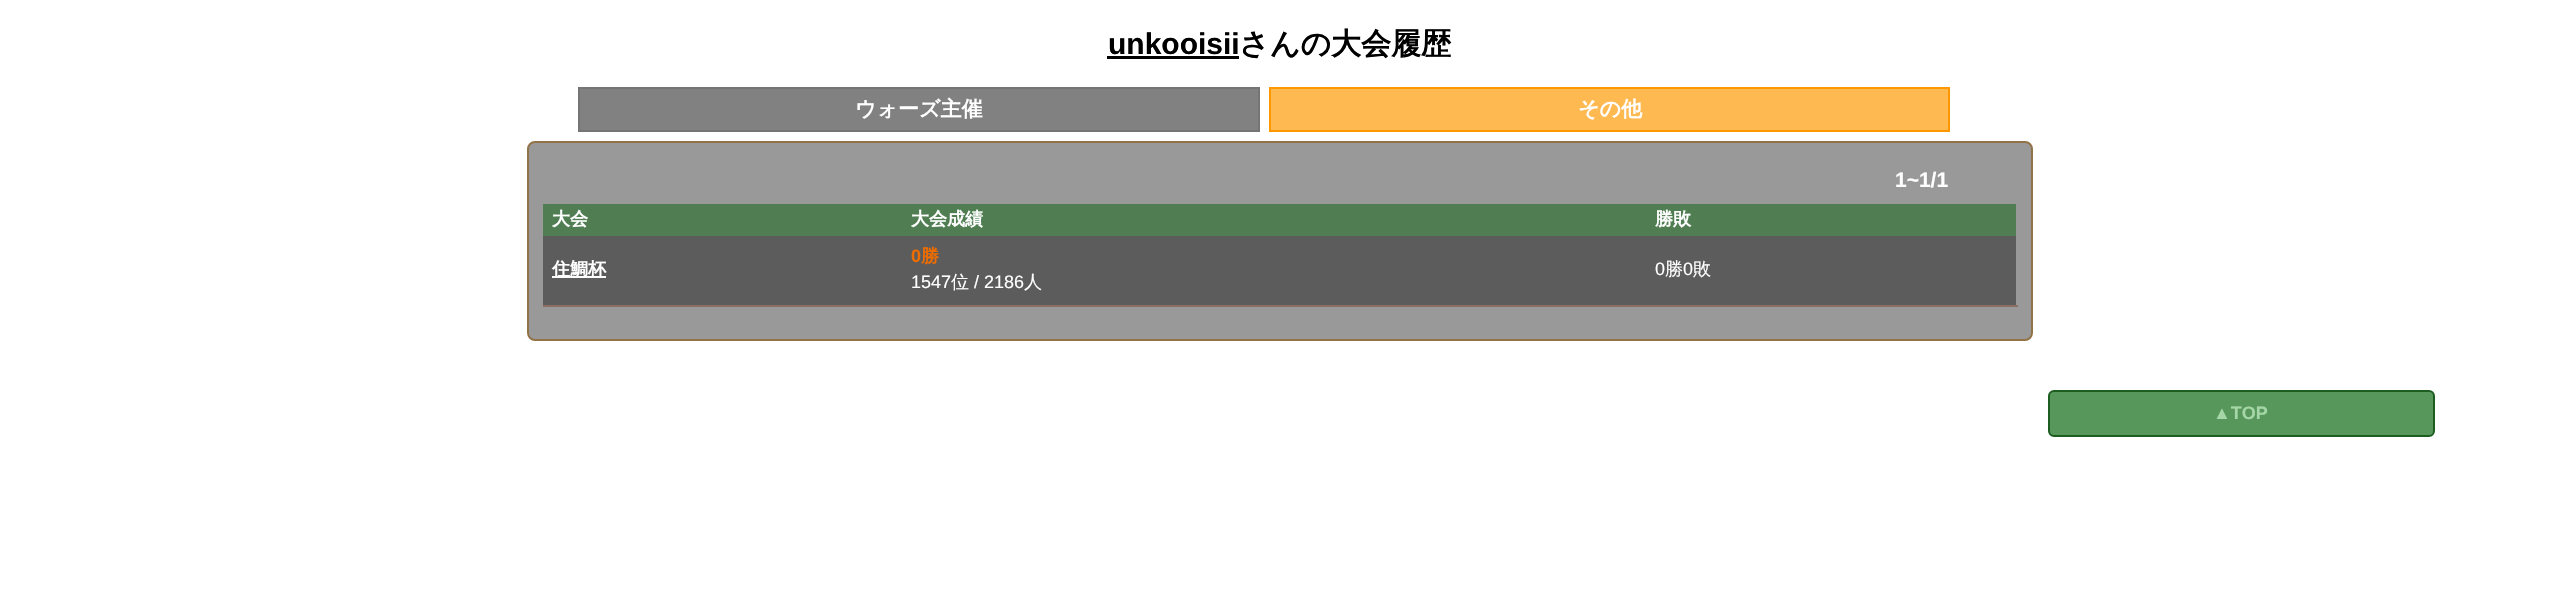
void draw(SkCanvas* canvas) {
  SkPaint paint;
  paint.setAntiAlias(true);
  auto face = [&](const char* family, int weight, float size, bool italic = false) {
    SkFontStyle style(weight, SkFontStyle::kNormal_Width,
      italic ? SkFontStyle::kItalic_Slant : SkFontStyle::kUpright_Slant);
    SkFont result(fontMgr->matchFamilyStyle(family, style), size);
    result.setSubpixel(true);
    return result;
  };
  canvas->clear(0xffffffff);
  paint.setColor(0xff000000);
  canvas->drawRect(SkRect::MakeXYWH(1107, 56, 132, 3), paint);
  paint.setColor(0xff818181);
  canvas->drawRect(SkRect::MakeXYWH(579, 88, 680, 43), paint);
  paint.setStroke(true);
  paint.setStrokeWidth(2);
  paint.setColor(0xff757575);
  canvas->drawRect(SkRect::MakeXYWH(579, 88, 680, 43), paint);
  paint.setStroke(false);
  paint.setColor(0xffffb951);
  canvas->drawRect(SkRect::MakeXYWH(1270, 88, 679, 43), paint);
  paint.setStroke(true);
  paint.setColor(0xffff9800);
  canvas->drawRect(SkRect::MakeXYWH(1270, 88, 679, 43), paint);
  paint.setStroke(false);
  paint.setColor(0xff999999);
  canvas->drawRoundRect(SkRect::MakeXYWH(528, 142, 1504, 198), 7, 7, paint);
  paint.setStroke(true);
  paint.setColor(0xff917347);
  canvas->drawRoundRect(SkRect::MakeXYWH(528, 142, 1504, 198), 7, 7, paint);
  paint.setStroke(false);
  {
    const struct { float x, y, w, h; SkColor color; } items[] = {
      {543, 236, 1473, 69, 0xff5c5c5c},
      {543, 204, 1473, 32, 0xff507e52},
      {552, 276, 54, 2, 0xffffffff},
      {543, 305, 1475, 2, 0xff8d6e63},
    };
    for (auto [x, y, w, h, color] : items) {
      paint.setColor(color);
      canvas->drawRect(SkRect::MakeXYWH(x, y, w, h), paint);
    }
  }
  paint.setColor(0xff58975b);
  canvas->drawRoundRect(SkRect::MakeXYWH(2049, 391, 385, 45), 5, 5, paint);
  paint.setStroke(true);
  paint.setColor(0xff1b5e20);
  canvas->drawRoundRect(SkRect::MakeXYWH(2049, 391, 385, 45), 5, 5, paint);
  auto f0 = face("Liberation Sans", 700, 30);
  paint.setStroke(false);
  paint.setColor(0xff000000);
  canvas->drawString("unkooisii", 1108, 54, f0, paint);
  auto f1 = face("WenQuanYi Zen Hei", 700, 30);
  canvas->drawString("さんの大会履歴", 1239, 54, f1, paint);
  auto f2 = face("WenQuanYi Zen Hei", 700, 21);
  paint.setColor(0xffffffff);
  canvas->drawString("ウォーズ主催", 855, 116, f2, paint);
  canvas->drawString("その他", 1578, 116, f2, paint);
  auto f3 = face("Liberation Sans", 700, 21);
  canvas->drawString("1~1/1", 1895, 187, f3, paint);
  auto f4 = face("WenQuanYi Zen Hei", 700, 18);
  {
    const struct { const char* s; float x, y; } items[] = {
      {"大会", 552, 225},
      {"大会成績", 911, 225},
      {"勝敗", 1655, 225},
      {"住鯛杯", 552, 275},
    };
    for (auto [s, x, y] : items) {
      canvas->drawString(s, x, y, f4, paint);
    }
  }
  auto f5 = face("Liberation Sans", 700, 18);
  paint.setColor(0xffef6c00);
  canvas->drawString("0", 911, 262, f5, paint);
  canvas->drawString("勝", 921, 262, f4, paint);
  auto f6 = face("Liberation Sans", 400, 18);
  paint.setColor(0xffffffff);
  canvas->drawString("1547", 911, 288, f6, paint);
  auto f7 = face("WenQuanYi Zen Hei", 500, 18);
  canvas->drawString("位", 951, 288, f7, paint);
  canvas->drawString("/ 2186", 974, 288, f6, paint);
  canvas->drawString("人", 1024, 288, f7, paint);
  canvas->drawString("0", 1655, 275, f6, paint);
  canvas->drawString("勝", 1665, 275, f7, paint);
  canvas->drawString("0", 1683, 275, f6, paint);
  canvas->drawString("敗", 1693, 275, f7, paint);
  paint.setColor(0xffa5d6a7);
  canvas->drawString("▲TOP", 2213, 419, f5, paint);
}
